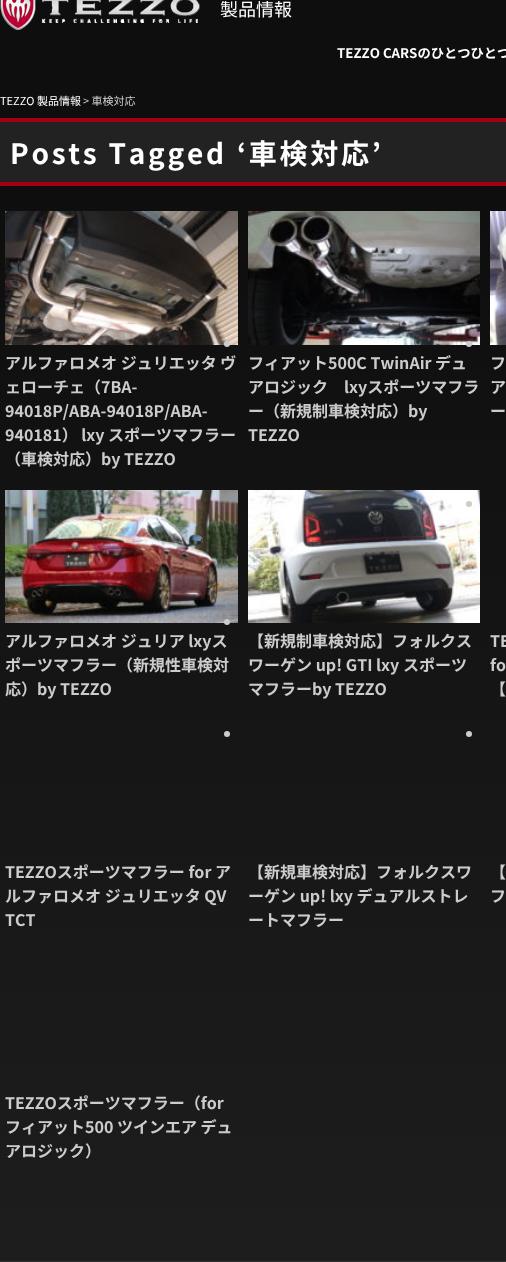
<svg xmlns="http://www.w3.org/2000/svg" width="506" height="1262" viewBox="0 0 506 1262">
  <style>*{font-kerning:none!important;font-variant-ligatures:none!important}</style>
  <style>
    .t1 { font: 18px Noto Sans JP; fill: #fff; }
    .t2 { font: bold 13.25px Noto Sans JP; fill: #fff; }
    .t3 { font: 11px Noto Sans JP; fill: #fff; }
    .t4 { font: 11px Noto Sans JP; fill: #ccc; }
    .t5 { font: bold 28px Noto Sans JP; letter-spacing: 2.75px; fill: #fff; }
    .t6 { font: bold 16px Noto Sans JP; fill: #ccc; }
  </style>
  <defs>
    <linearGradient id="g1" gradientUnits="userSpaceOnUse" x1="253" y1="-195" x2="253" y2="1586"><stop offset="0.22" stop-color="#0e0e0e"/><stop offset="1" stop-color="#222"/></linearGradient>
  </defs>
  <rect width="100%" height="100%" fill="#fff"/>
  <rect x="0" y="0" width="506" height="1261" fill="url(#g1)"/>
  <image x="0" y="0" width="200" height="30" href="images/1.png"/>
  <text x="220" y="16" class="t1">製品情報</text>
  <text x="337" y="58" class="t2">TEZZO CARSのひとつひとつ</text>
  <text x="0" y="105" class="t3">TEZZO 製品情報</text>
  <text x="83" y="105" class="t4">&gt; 車検対応</text>
  <rect x="0" y="122" width="506" height="60" fill="#222"/>
  <rect x="0" y="118" width="506" height="4" fill="#a30013"/>
  <rect x="0" y="182" width="506" height="4" fill="#a30013"/>
  <text x="10" y="164" class="t5">Posts Tagged</text>
  <text x="237" y="164" class="t5">‘車検対応’</text>
  <image x="5" y="211" width="233" height="134" href="images/2.png"/>
  <text x="5" y="369" class="t6">アルファロメオ ジュリエッタ ヴ</text>
  <text x="5" y="393" class="t6">ェローチェ（7BA-</text>
  <text x="5" y="417" class="t6">94018P/ABA-94018P/ABA-</text>
  <text x="5" y="441" class="t6">940181） lxy スポーツマフラー</text>
  <text x="5" y="465" class="t6">（車検対応）by TEZZO</text>
  <circle cx="227" cy="344" r="3" fill="#ccc"/>
  <image x="248" y="211" width="232" height="134" href="images/3.png"/>
  <text x="248" y="369" class="t6">フィアット500C TwinAir デュ</text>
  <text x="248" y="393" class="t6">アロジック　lxyスポーツマフラ</text>
  <text x="248" y="417" class="t6">ー（新規制車検対応）by</text>
  <text x="248" y="441" class="t6">TEZZO</text>
  <circle cx="469" cy="344" r="3" fill="#ccc"/>
  <image x="490" y="211" width="16" height="134" href="images/4.png"/>
  <text x="490" y="369" class="t6">フ</text>
  <text x="490" y="393" class="t6">ア</text>
  <text x="490" y="417" class="t6">ー</text>
  <image x="5" y="490" width="233" height="133" href="images/5.png"/>
  <text x="5" y="647" class="t6">アルファロメオ ジュリア lxyス</text>
  <text x="5" y="671" class="t6">ポーツマフラー（新規性車検対</text>
  <text x="5" y="695" class="t6">応）by TEZZO</text>
  <circle cx="227" cy="622" r="3" fill="#ccc"/>
  <image x="248" y="490" width="232" height="133" href="images/6.png"/>
  <text x="248" y="647" class="t6">【新規制車検対応】フォルクス</text>
  <text x="248" y="671" class="t6">ワーゲン up! GTI lxy スポーツ</text>
  <text x="248" y="695" class="t6">マフラーby TEZZO</text>
  <circle cx="469" cy="504" r="3" fill="#ccc"/>
  <text x="490" y="647" class="t6">TE</text>
  <text x="490" y="671" class="t6">fo</text>
  <text x="490" y="695" class="t6">【</text>
  <text x="5" y="878" class="t6">TEZZOスポーツマフラー for ア</text>
  <text x="5" y="902" class="t6">ルファロメオ ジュリエッタ QV</text>
  <text x="5" y="926" class="t6">TCT</text>
  <circle cx="227" cy="734" r="3" fill="#ccc"/>
  <text x="248" y="878" class="t6">【新規車検対応】フォルクスワ</text>
  <text x="248" y="902" class="t6">ーゲン up! lxy デュアルストレ</text>
  <text x="248" y="926" class="t6">ートマフラー</text>
  <circle cx="469" cy="734" r="3" fill="#ccc"/>
  <text x="490" y="878" class="t6">【</text>
  <text x="490" y="902" class="t6">フ</text>
  <text x="5" y="1109" class="t6">TEZZOスポーツマフラー（for</text>
  <text x="5" y="1133" class="t6">フィアット500 ツインエア デュ</text>
  <text x="5" y="1157" class="t6">アロジック）</text>
  <rect x="0" y="1261" width="506" height="1" fill="#333"/>
</svg>
